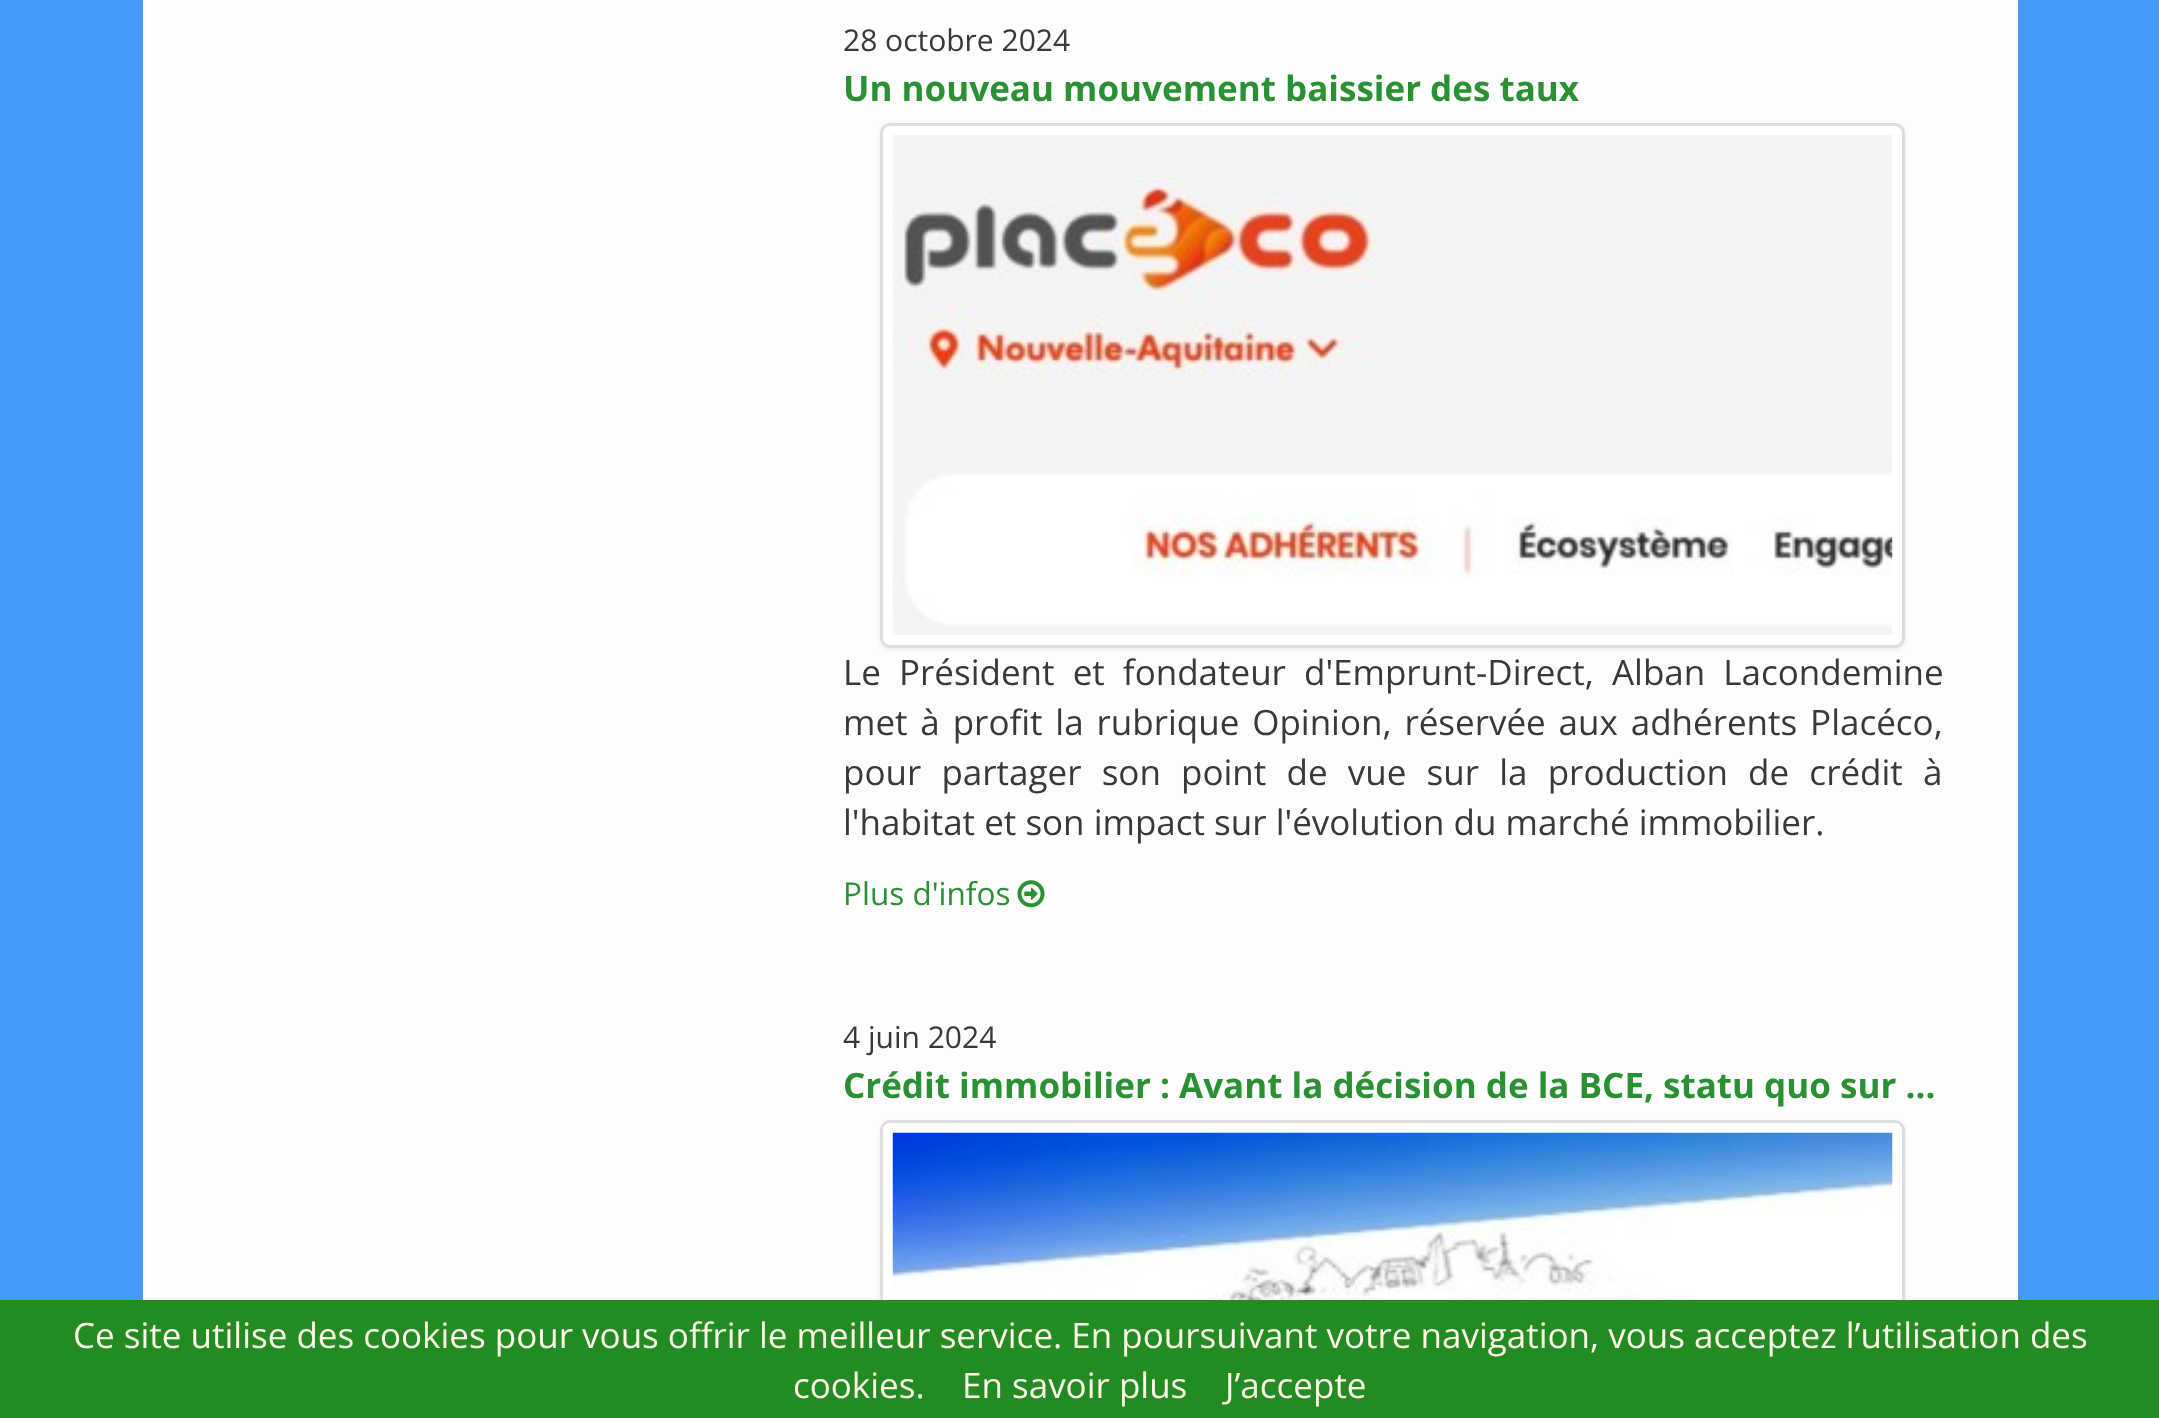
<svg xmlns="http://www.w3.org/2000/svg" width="2159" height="1418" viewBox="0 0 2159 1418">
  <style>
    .t1 { font: 30px Open Sans; fill: #393939; }
    .t2 { font: bold 35px Open Sans; fill: #2a9133; }
    .t3 { font: 35px Open Sans; fill: #393939; }
    .t4 { font: 31.5px Open Sans; fill: #2a9133; }
    .t5 { font: 35px Open Sans; fill: #fdf5e6; }
  </style>
  <rect width="100%" height="100%" fill="#429bf9"/>
  <rect x="143" y="0" width="1875" height="1300" fill="#fdfdfd"/>
  <text x="843" y="51" class="t1">28 octobre 2024</text>
  <text x="843" y="101" class="t2">Un nouveau mouvement baissier des taux</text>
  <rect x="880" y="125" width="1025" height="525" rx="10" fill="#00000012" filter="blur(2.5px)"/>
  <rect x="881.5" y="124.5" width="1022" height="522" rx="8.5" fill="#fff" stroke="#ddd" stroke-width="3"/>
  <image x="892" y="135" width="1001" height="500" href="images/1.png"/>
  <text x="843" y="685" word-spacing="9" class="t3">Le Président et fondateur d'Emprunt-Direct, Alban Lacondemine</text>
  <text x="843" y="735" word-spacing="3.75" class="t3">met à profit la rubrique Opinion, réservée aux adhérents Placéco,</text>
  <text x="843" y="785" word-spacing="11.1" class="t3">pour partager son point de vue sur la production de crédit à</text>
  <text x="843" y="835" class="t3">l'habitat et son impact sur l'évolution du marché immobilier.</text>
  <text x="843" y="905" class="t4">Plus d'infos</text>
  <image x="1017" y="880" width="28" height="28" href="images/2.png"/>
  <text x="843" y="1048" class="t1">4 juin 2024</text>
  <text x="843" y="1098" class="t2">Crédit immobilier : Avant la décision de la BCE, statu quo sur …</text>
  <rect x="880" y="1123" width="1025" height="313" rx="10" fill="#00000012" filter="blur(2.5px)"/>
  <rect x="881.5" y="1121.5" width="1022" height="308" rx="8.5" fill="#fff" stroke="#ddd" stroke-width="3"/>
  <image x="892" y="1132" width="1001" height="168" href="images/3.png"/>
  <rect x="0" y="1300" width="2159" height="118" fill="#228b22"/>
  <text x="73" y="1348" class="t5">Ce site utilise des cookies pour vous offrir le meilleur service. En poursuivant votre navigation, vous acceptez l’utilisation des</text>
  <text x="793" y="1398" class="t5">cookies.</text>
  <text x="962" y="1398" class="t5">En savoir plus</text>
  <text x="1225" y="1398" class="t5">J’accepte</text>
</svg>
